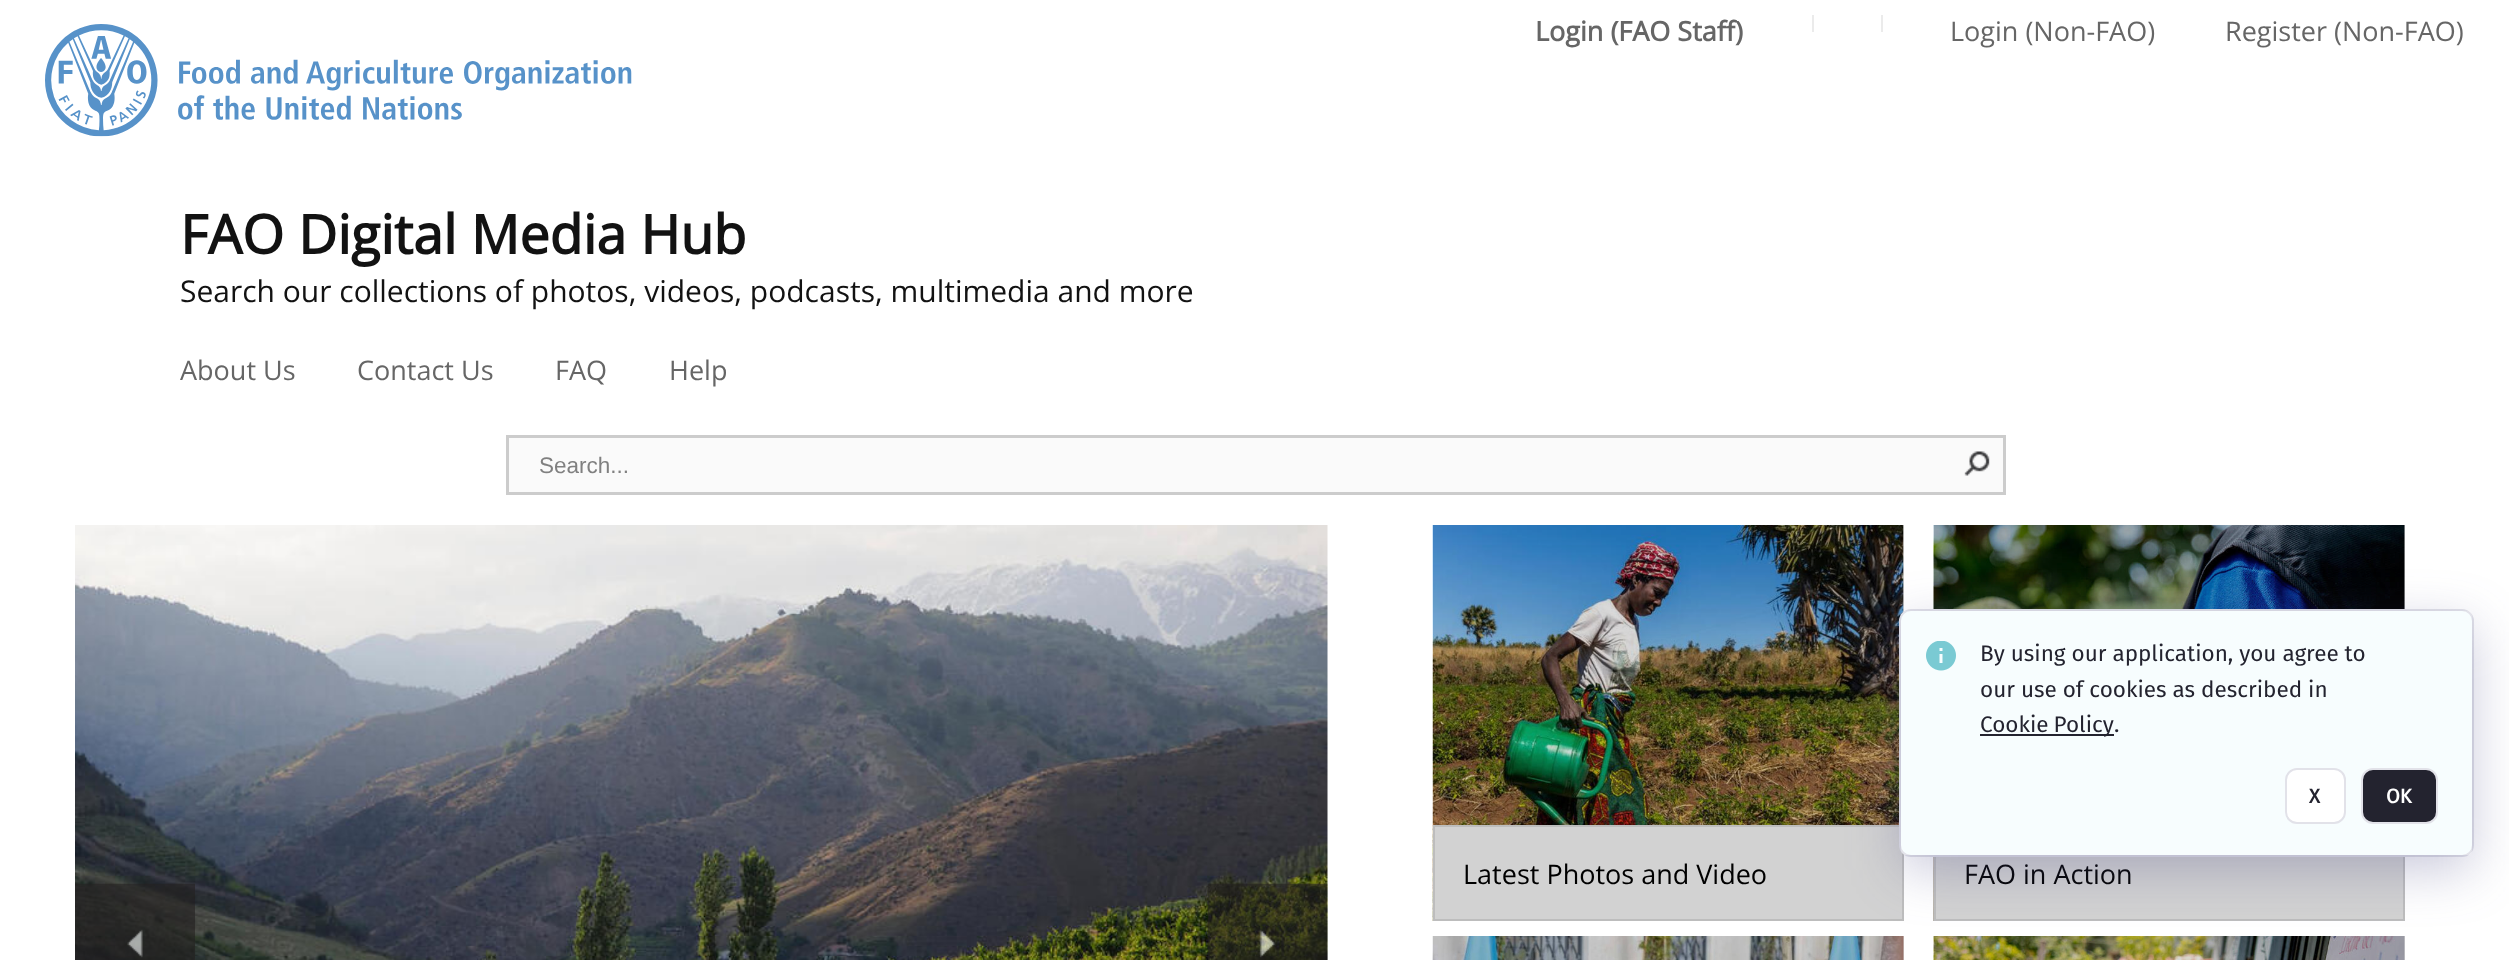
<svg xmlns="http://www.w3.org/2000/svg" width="2509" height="960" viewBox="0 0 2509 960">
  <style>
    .t1 { font: bold 27px Open Sans; fill: #666; }
    .t2 { font: 27px Open Sans; fill: #666; }
    .t3 { font: bold 54px Open Sans; fill: #121212; }
    .t4 { font: 30px Open Sans; fill: #121212; }
    .t5 { font: 22.5px Liberation Sans; fill: #808080; }
    .t6 { font: 27px Open Sans; fill: #000; }
    .t7 { font: 22.5px Fira Sans; fill: #23232f; }
    .t8 { font: bold 20px Fira Sans; fill: #23232f; }
    .t9 { font: bold 20px Fira Sans; fill: #fff; }
  </style>
  <defs>
    <clipPath id="clip1"><path d="M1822 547H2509V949H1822ZM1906 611H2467C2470 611 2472 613 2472 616V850C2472 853 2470 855 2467 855H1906C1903 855 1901 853 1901 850V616C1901 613 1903 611 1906 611Z" clip-rule="evenodd"/></clipPath>
  </defs>
  <rect width="100%" height="100%" fill="#fff"/>
  <rect x="2404" y="936" width="1" height="24" fill="#d9d9d9"/>
  <rect x="1903" y="936" width="1" height="24" fill="#d9d9d9"/>
  <rect x="2404" y="525" width="1" height="84" fill="#d9d9d9"/>
  <rect x="1903" y="525" width="1" height="88" fill="#d9d9d9"/>
  <image x="45" y="24" width="587" height="113" href="images/1.png"/>
  <text x="1535" y="41" class="t1">Login (FAO Staff)</text>
  <rect x="1812" y="15" width="2" height="17" fill="#ebebeb"/>
  <rect x="1881" y="15" width="2" height="17" fill="#ebebeb"/>
  <text x="1950" y="41" class="t2">Login (Non-FAO)</text>
  <text x="2225" y="41" class="t2">Register (Non-FAO)</text>
  <text x="180" y="254" class="t3">FAO Digital Media Hub</text>
  <text x="180" y="302" class="t4">Search our collections of photos, videos, podcasts, multimedia and more</text>
  <text x="180" y="380" class="t2">About Us</text>
  <text x="357" y="380" class="t2">Contact Us</text>
  <text x="555" y="380" class="t2">FAQ</text>
  <text x="669" y="380" class="t2">Help</text>
  <rect x="507.5" y="436.5" width="1497" height="57" fill="#fafafa" stroke="#ccc" stroke-width="3"/>
  <text x="539" y="473" class="t5">Search...</text>
  <image x="1964" y="451" width="26" height="25" href="images/2.png"/>
  <image x="75" y="525" width="1253" height="435" href="images/3.png"/>
  <image x="75" y="883" width="120" height="77" href="images/4.png"/>
  <image x="1207" y="883" width="121" height="77" href="images/5.png"/>
  <image x="1432" y="525" width="472" height="396" href="images/6.png"/>
  <rect x="1434" y="826" width="469" height="94" fill="#d2d2d2" stroke="#bdbdbd" stroke-width="2"/>
  <text x="1463" y="884" class="t6">Latest Photos and Video</text>
  <image x="1933" y="525" width="472" height="396" href="images/7.png"/>
  <rect x="1936" y="857" width="467" height="62" fill="#d2d2d2"/>
  <rect x="1935" y="826" width="469" height="94" fill="none" stroke="#bdbdbd" stroke-width="2"/>
  <text x="1964" y="884" class="t6">FAO in Action</text>
  <image x="1432" y="936" width="472" height="24" href="images/8.png"/>
  <image x="1933" y="936" width="472" height="24" href="images/9.png"/>
  <rect x="1900" y="610" width="573" height="246" rx="11" fill="#f7fdfe" stroke="#e2e2e9" stroke-width="2"/>
  <g clip-path="url(#clip1)">
    <rect x="1901" y="626" width="571" height="244" rx="5" fill="#4d4d874d" filter="blur(26px)"/>
  </g>
  <image x="1926" y="641" width="30" height="30" href="images/10.png"/>
  <text x="1980" y="661" class="t7">By using our application, you agree to</text>
  <text x="1980" y="697" class="t7">our use of cookies as described in</text>
  <rect x="1980" y="734" width="134" height="2" fill="#23232f"/>
  <text x="1980" y="732" word-spacing="-1" class="t7">Cookie Policy</text>
  <text x="2114" y="732" class="t7">.</text>
  <rect x="2286" y="769" width="59" height="54" rx="11" fill="#fff" stroke="#e2e2e9" stroke-width="2"/>
  <text x="2309" y="803" class="t8">X</text>
  <rect x="2362" y="769" width="75" height="54" rx="11" fill="#23232f" stroke="#e2e2e9" stroke-width="2"/>
  <text x="2386" y="803" class="t9">OK</text>
</svg>
